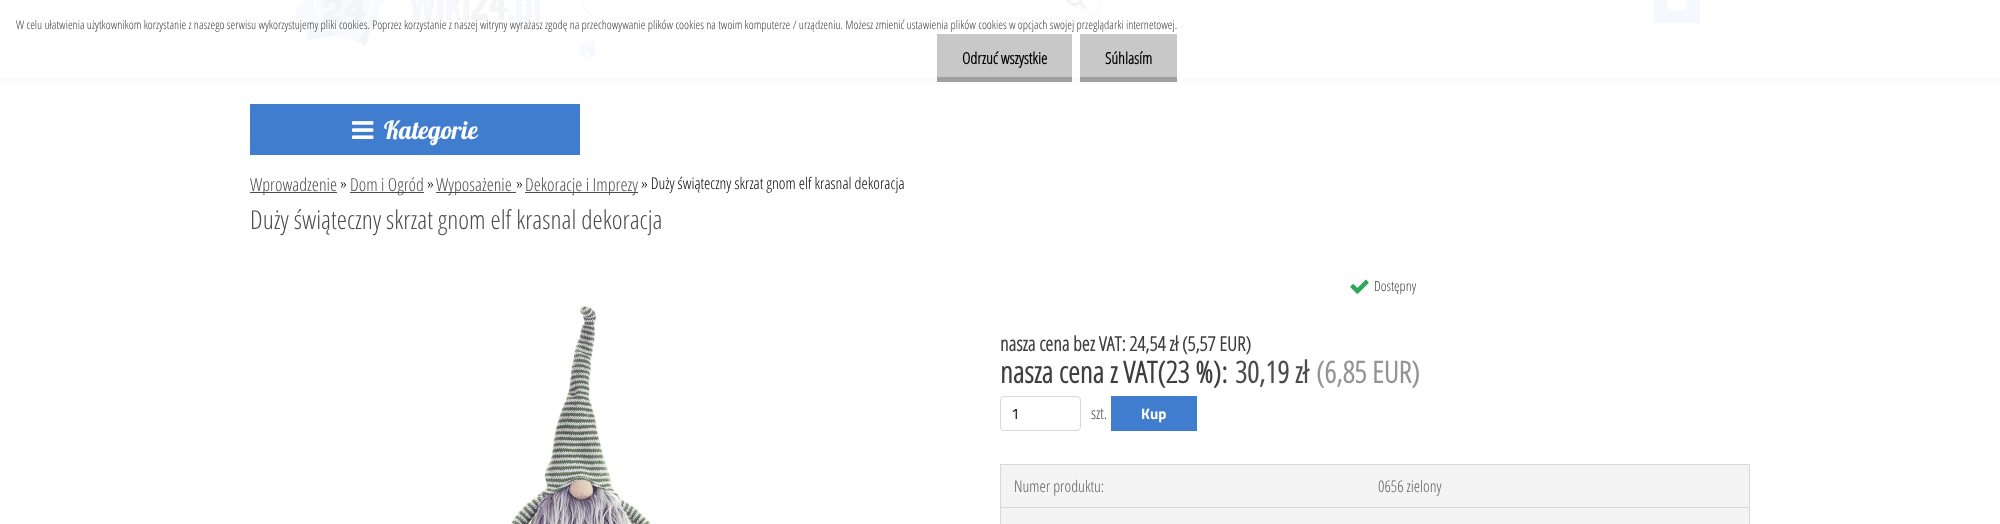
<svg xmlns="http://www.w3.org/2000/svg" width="2000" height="524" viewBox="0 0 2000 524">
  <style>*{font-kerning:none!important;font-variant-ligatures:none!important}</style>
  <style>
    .t1 { font: 300 12px Open Sans Condensed; fill: #3f3f3f; }
    .t2 { font: bold 16px Open Sans Condensed; fill: #000; }
    .t3 { font: 25px Lobster; fill: #fff; }
    .t4 { font: 300 18px Open Sans Condensed; fill: #4c4c4c; }
    .t5 { font: 300 16px Open Sans Condensed; fill: #000; }
    .t6 { font: 300 26px Open Sans Condensed; fill: #4c4c4c; }
    .t7 { font: 300 14px Open Sans Condensed; fill: #3f3f3f; }
    .t8 { font: bold 20px Open Sans Condensed; fill: #3f3f3f; }
    .t9 { font: bold 30px Open Sans Condensed; fill: #3f3f3f; }
    .t10 { font: bold 30px Open Sans Condensed; fill: #4c4c4c; }
    .t11 { font: bold 30px Open Sans Condensed; fill: #949494; }
    .t12 { font: 15px Titillium Web; fill: #000; }
    .t13 { font: 300 16px Open Sans Condensed; fill: #3f3f3f; }
    .t14 { font: bold 15px Titillium Web; fill: #fff; }
    .t15 { font: 300 16px Open Sans Condensed; fill: #5d5d5d; }
  </style>
  <rect width="100%" height="100%" fill="#fff"/>
  <image x="292" y="0" width="248" height="46" href="images/1.png"/>
  <text x="16" y="29" class="t1">W celu ułatwienia użytkownikom korzystanie z naszego serwisu wykorzystujemy pliki cookies. Poprzez korzystanie z naszej witryny wyrażasz zgodę na przechowywanie plików cookies na twoim komputerze / urządzeniu. Możesz zmienić ustawienia plików cookies w opcjach swojej przeglądarki internetowej.</text>
  <rect x="937" y="34" width="135" height="43" fill="#c8c8c8"/>
  <rect x="0" y="77" width="2000" height="7" fill="#fcfcfc"/>
  <rect x="937" y="77" width="135" height="5" fill="#a0a0a0"/>
  <text x="962" y="64" class="t2">Odrzuć wszystkie</text>
  <rect x="1080" y="34" width="97" height="43" fill="#c8c8c8"/>
  <rect x="1080" y="77" width="97" height="5" fill="#a0a0a0"/>
  <text x="1105" y="64" class="t2">Súhlasím</text>
  <path d="M1056 19V18H603C598 18 592 16 589 12L588 13C592 17 597 19 603 19Z" fill="#f2f2f280"/>
  <path d="M588 13C581 6 580-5.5 585-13.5L586-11.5C581-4 583 6 589 12Z" fill="#f2f2f280"/>
  <path d="M1095 12C1101 6 1103-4 1098-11.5L1099-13.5C1104-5.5 1103 6 1096 13Z" fill="#f2f2f280"/>
  <path d="M1056 18V19H1081C1087 19 1092 17 1096 13L1095 12C1092 16 1086 18 1081 18Z" fill="#f2f2f280"/>
  <image x="1066" y="0" width="21" height="10" href="images/2.png"/>
  <image x="577" y="41" width="21" height="16" href="images/3.png"/>
  <rect x="1654" y="0" width="46" height="23" fill="#f5f9fd"/>
  <image x="1666" y="0" width="22" height="10" href="images/4.png"/>
  <rect x="250" y="104" width="330" height="51" fill="#407dcf"/>
  <image x="352" y="121" width="22" height="18" href="images/5.png"/>
  <text x="384" y="139" class="t3">Kategorie</text>
  <rect x="250" y="192" width="87" height="1" fill="#4d4d4d"/>
  <text x="250" y="191" class="t4">Wprowadzenie</text>
  <text x="340" y="189" class="t5">»</text>
  <rect x="350" y="192" width="74" height="1" fill="#4d4d4d"/>
  <text x="350" y="191" class="t4">Dom i Ogród</text>
  <text x="427" y="189" class="t5">»</text>
  <rect x="436" y="192" width="80" height="1" fill="#4d4d4d"/>
  <text x="436" y="191" class="t4">Wyposażenie</text>
  <text x="516" y="189" class="t5">»</text>
  <rect x="525" y="192" width="113" height="1" fill="#4d4d4d"/>
  <text x="525" y="191" class="t4">Dekoracje i Imprezy</text>
  <text x="641" y="189" class="t5">» Duży świąteczny skrzat gnom elf krasnal dekoracja</text>
  <text x="250" y="229" class="t6">Duży świąteczny skrzat gnom elf krasnal dekoracja</text>
  <image x="511" y="306" width="140" height="218" href="images/6.png"/>
  <image x="1350" y="279" width="19" height="15" href="images/7.png"/>
  <text x="1374" y="291" class="t7">Dostępny</text>
  <text x="1000" y="351" class="t8">nasza cena bez VAT: 24,54 zł (5,57 EUR)</text>
  <text x="1000" y="383" class="t9">nasza cena z VAT(23 %):</text>
  <text x="1235" y="383" class="t10">30,19 zł</text>
  <text x="1316" y="383" class="t11">(6,85 EUR)</text>
  <rect x="1000.5" y="396.5" width="80" height="34" rx="3.5" fill="none" stroke="#d9d9d9"/>
  <text x="1011" y="419" class="t12">1</text>
  <text x="1091" y="419" class="t13">szt.</text>
  <rect x="1111" y="396" width="86" height="35" fill="#407dcf"/>
  <text x="1141" y="419" class="t14">Kup</text>
  <rect x="1001" y="465" width="748" height="42" fill="#f4f4f4"/>
  <rect x="1000" y="464" width="750" height="1" fill="#d9d9d9"/>
  <rect x="1000" y="507" width="750" height="1" fill="#d9d9d9"/>
  <rect x="1749" y="507" width="1" height="17" fill="#d9d9d9"/>
  <rect x="1749" y="464" width="1" height="44" fill="#d9d9d9"/>
  <rect x="1000" y="507" width="1" height="17" fill="#d9d9d9"/>
  <rect x="1000" y="464" width="1" height="44" fill="#d9d9d9"/>
  <text x="1014" y="492" class="t15">Numer produktu:</text>
  <text x="1378" y="492" class="t15">0656 zielony</text>
  <rect x="1001" y="508" width="748" height="16" fill="#f4f4f4"/>
</svg>
